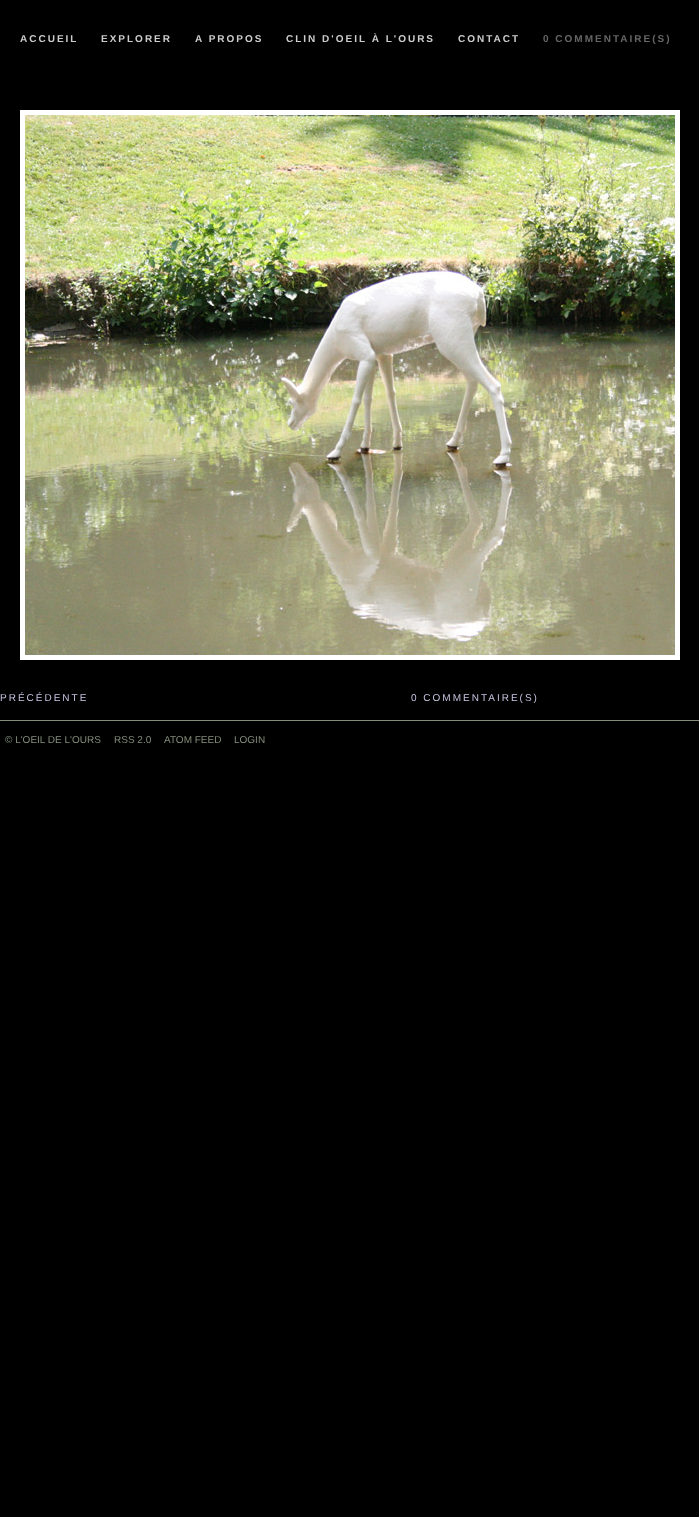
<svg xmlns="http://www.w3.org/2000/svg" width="699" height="1517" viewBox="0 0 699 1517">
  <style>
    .t1 { font: bold 10px Liberation Sans; letter-spacing: 2px; fill: #ccc; }
    .t2 { font: bold 10px Liberation Sans; letter-spacing: 2px; fill: #666; }
    .t3 { font: 10px Liberation Sans; letter-spacing: 2px; fill: #c6c5e0; }
    .t4 { font: 10px Liberation Sans; fill: #838d7a; }
  </style>
  <rect width="100%" height="100%" fill="#000"/>
  <text x="20" y="42" class="t1">ACCUEIL</text>
  <text x="101" y="42" class="t1">EXPLORER</text>
  <text x="195" y="42" class="t1">A PROPOS</text>
  <text x="286" y="42" class="t1">CLIN D'OEIL À L'OURS</text>
  <text x="458" y="42" class="t1">CONTACT</text>
  <text x="543" y="42" class="t2">0 COMMENTAIRE(S)</text>
  <rect x="20" y="110" width="660" height="550" fill="#fff"/>
  <image x="25" y="115" width="650" height="540" href="images/1.png"/>
  <text x="0" y="701" class="t3">PRÉCÉDENTE</text>
  <text x="411" y="701" class="t3">0 COMMENTAIRE(S)</text>
  <rect x="0" y="720" width="699" height="1" fill="#838d7a"/>
  <text x="5" y="743" class="t4">© L'OEIL DE L'OURS</text>
  <text x="114" y="743" class="t4">RSS 2.0</text>
  <text x="164" y="743" class="t4">ATOM FEED</text>
  <text x="234" y="743" class="t4">LOGIN</text>
</svg>
